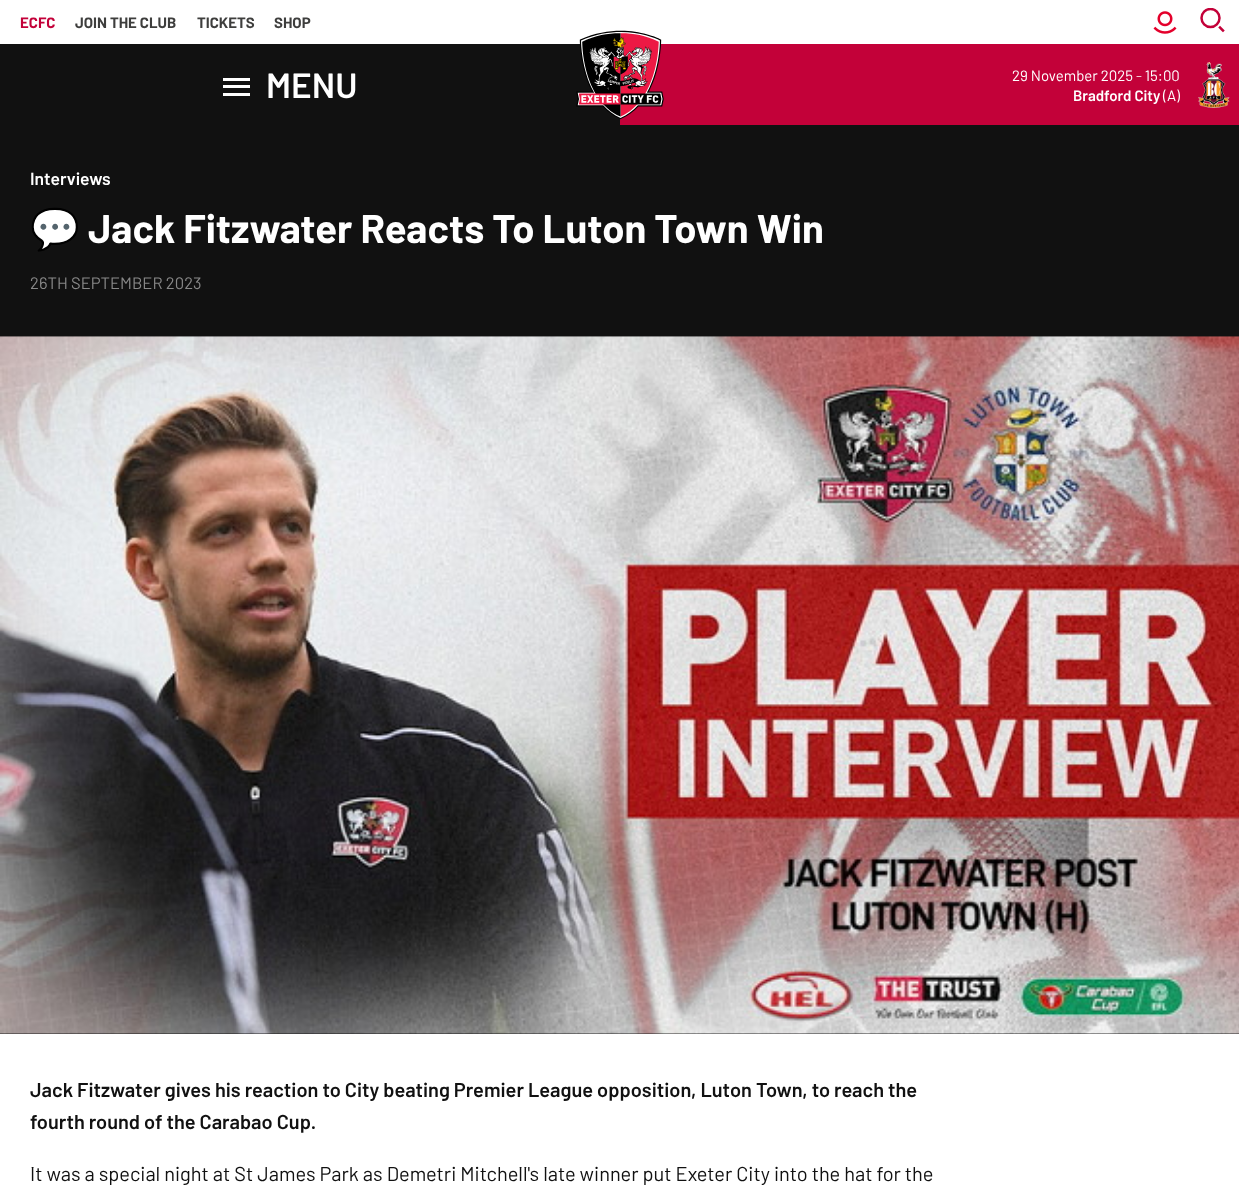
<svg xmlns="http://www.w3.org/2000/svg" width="1239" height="1190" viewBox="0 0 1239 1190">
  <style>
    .t1 { font: bold 15px Barlow; fill: #c30139; }
    .t2 { font: bold 15px Barlow; fill: #3e3e3d; }
    .t3 { font: 600 35px Barlow; fill: #fff; }
    .t4 { font: 15px Barlow; fill: #fff; }
    .t5 { font: 600 15px Barlow; fill: #fff; }
    .t6 { font: 600 17.5px Barlow; fill: #fff; }
    .t7 { font: bold 40px Noto Color Emoji; fill: #fff; }
    .t8 { font: bold 40px Barlow; fill: #fff; }
    .t9 { font: 16.6px Barlow; fill: #888; }
    .t10 { font: 600 20px Barlow; fill: #111; }
    .t11 { font: 20px Barlow; fill: #111; }
  </style>
  <defs>
    <clipPath id="clip1"><rect x="1200" y="8" width="30" height="30"/></clipPath>
  </defs>
  <rect width="100%" height="100%" fill="#fff"/>
  <text x="20" y="28" class="t1">ECFC</text>
  <text x="75" y="28" class="t2">JOIN THE CLUB</text>
  <text x="197" y="28" class="t2">TICKETS</text>
  <text x="274" y="28" class="t2">SHOP</text>
  <image x="1153" y="11" width="24" height="23" href="images/1.png"/>
  <g clip-path="url(#clip1)">
    <circle cx="1210.5" cy="18" r="9" fill="none" stroke="#c30139" stroke-width="2.5"/>
  </g>
  <path d="M1223 30.5L1220 27.5" fill="none" stroke="#c30139" stroke-width="2.5" stroke-linecap="square"/>
  <rect x="0" y="44" width="620" height="81" fill="#111"/>
  <rect x="620" y="44" width="619" height="81" fill="#c30139"/>
  <image x="576" y="30" width="88" height="90" href="images/2.png"/>
  <rect x="223" y="85" width="27" height="3" fill="#fff"/>
  <rect x="223" y="78" width="27" height="3" fill="#fff"/>
  <rect x="223" y="93" width="27" height="3" fill="#fff"/>
  <text x="266" y="98" class="t3">MENU</text>
  <text x="1012" y="81" class="t4">29 November 2025 - 15:00</text>
  <image x="1198" y="62" width="32" height="46" href="images/3.png"/>
  <text x="1073" y="101" class="t5">Bradford City</text>
  <text x="1163" y="101" class="t4">(A)</text>
  <rect x="0" y="125" width="1239" height="909" fill="#111"/>
  <text x="30" y="185" class="t6">Interviews</text>
  <text x="30" y="243" class="t7">💬</text>
  <text x="88" y="243" class="t8">Jack Fitzwater Reacts To Luton Town Win</text>
  <text x="30" y="289" class="t9">26TH SEPTEMBER 2023</text>
  <image x="0" y="336" width="1239" height="698" href="images/4.png"/>
  <text x="30" y="1097" class="t10">Jack Fitzwater gives his reaction to City beating Premier League opposition, Luton Town, to reach the</text>
  <text x="30" y="1129" class="t10">fourth round of the Carabao Cup.</text>
  <text x="30" y="1181" class="t11">It was a special night at St James Park as Demetri Mitchell's late winner put Exeter City into the hat for the</text>
</svg>
